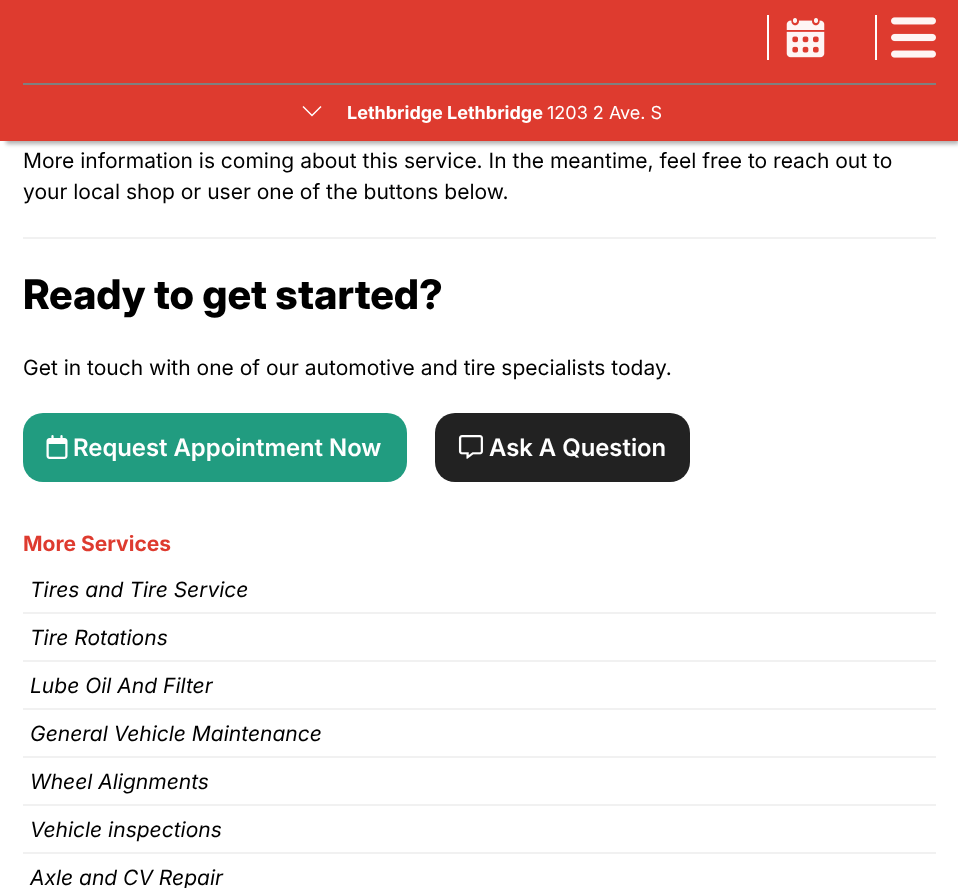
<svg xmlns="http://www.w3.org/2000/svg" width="958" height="888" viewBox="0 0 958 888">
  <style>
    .t1 { font: bold 18px Inter; fill: #fff; }
    .t2 { font: 18px Inter; fill: #fff; }
    .t3 { font: 21px Inter; fill: #000; }
    .t4 { font: 800 40.75px Inter; fill: #000; }
    .t5 { font: 600 24px Inter; fill: #fff; }
    .t6 { font: bold 21px Inter; fill: #de3b2f; }
    .t7 { font: italic 21px Inter; fill: #000; }
  </style>
  <rect width="100%" height="100%" fill="#fff"/>
  <rect x="6" y="9" width="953" height="135" fill="#0000004f" filter="blur(2px)"/>
  <rect x="0" y="0" width="958" height="141" fill="#de3b2f"/>
  <rect x="767" y="15" width="2" height="45" fill="#fff"/>
  <image x="786" y="18" width="39" height="40" href="images/1.png"/>
  <rect x="875" y="15" width="2" height="45" fill="#fff"/>
  <image x="891" y="17" width="45" height="41" href="images/2.png"/>
  <rect x="23" y="83" width="913" height="2" fill="#808080"/>
  <path d="M321 106.5L312 115.5L303 106.5" fill="none" stroke="#fff" stroke-width="1.5"/>
  <text x="347" y="119" class="t1">Lethbridge Lethbridge</text>
  <text x="547" y="119" class="t2">1203 2 Ave. S</text>
  <text x="23" y="168" class="t3">More information is coming about this service. In the meantime, feel free to reach out to</text>
  <text x="23" y="199" class="t3">your local shop or user one of the buttons below.</text>
  <rect x="23" y="237" width="913" height="2" fill="#f1f1f1"/>
  <text x="23" y="309" class="t4">Ready to get started?</text>
  <text x="23" y="375" class="t3">Get in touch with one of our automotive and tire specialists today.</text>
  <rect x="23" y="413" width="384" height="69" rx="20" fill="#219c80"/>
  <image x="46" y="435" width="22" height="24" href="images/3.png"/>
  <text x="73" y="456" class="t5">Request Appointment Now</text>
  <rect x="435" y="413" width="255" height="69" rx="20" fill="#222"/>
  <image x="458" y="435" width="25" height="24" href="images/4.png"/>
  <text x="489" y="456" class="t5">Ask A Question</text>
  <text x="23" y="551" class="t6">More Services</text>
  <rect x="23" y="612" width="913" height="2" fill="#f1f1f1"/>
  <text x="30" y="597" class="t7">Tires and Tire Service</text>
  <rect x="23" y="660" width="913" height="2" fill="#f1f1f1"/>
  <text x="30" y="645" class="t7">Tire Rotations</text>
  <rect x="23" y="708" width="913" height="2" fill="#f1f1f1"/>
  <text x="30" y="693" class="t7">Lube Oil And Filter</text>
  <rect x="23" y="756" width="913" height="2" fill="#f1f1f1"/>
  <text x="30" y="741" class="t7">General Vehicle Maintenance</text>
  <rect x="23" y="804" width="913" height="2" fill="#f1f1f1"/>
  <text x="30" y="789" class="t7">Wheel Alignments</text>
  <rect x="23" y="852" width="913" height="2" fill="#f1f1f1"/>
  <text x="30" y="837" class="t7">Vehicle inspections</text>
  <text x="30" y="885" class="t7">Axle and CV Repair</text>
</svg>
